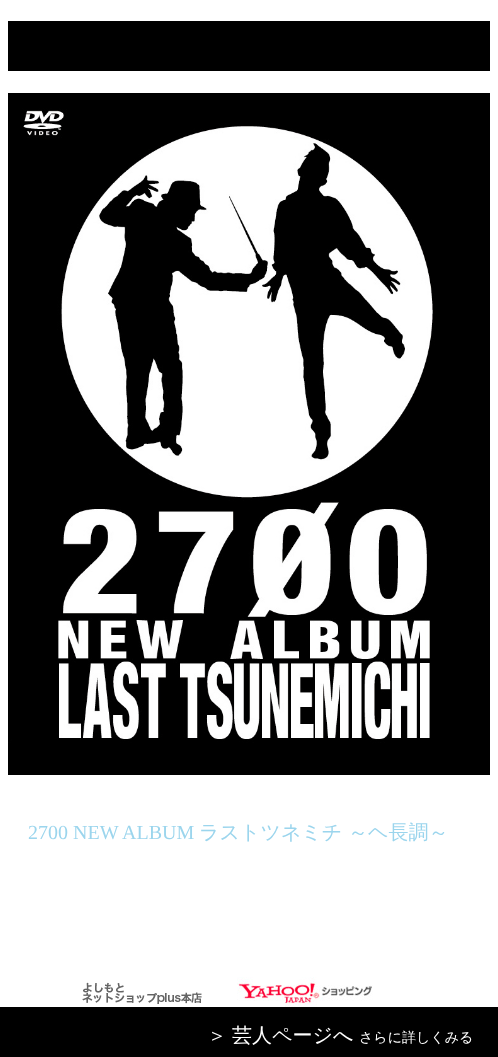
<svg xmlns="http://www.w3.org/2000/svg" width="498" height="1057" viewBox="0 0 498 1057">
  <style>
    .t1 { font: 20px Liberation Serif; fill: #9bd5ed; }
    .t2 { font: 500 20px WenQuanYi Zen Hei; fill: #9bd5ed; }
    .t3 { font: 500 20px WenQuanYi Zen Hei; fill: #fff; }
    .t4 { font: 500 14px WenQuanYi Zen Hei; fill: #fff; }
  </style>
  <rect width="100%" height="100%" fill="#fff"/>
  <rect x="8" y="21" width="482" height="50" fill="#000"/>
  <image x="8" y="93" width="482" height="682" href="images/1.png"/>
  <text x="28" y="839" class="t1">2700 NEW ALBUM</text>
  <text x="199" y="839" class="t2">ラストツネミチ</text>
  <text x="348" y="839" class="t2">～ヘ長調～</text>
  <image x="71" y="982" width="142" height="25" href="images/2.png"/>
  <image x="237" y="977" width="142" height="30" href="images/3.png"/>
  <rect x="0" y="1007" width="498" height="50" fill="#000"/>
  <text x="207" y="1042" word-spacing="-1" class="t3">＞ 芸人ページへ</text>
  <text x="359" y="1042" class="t4">さらに詳しくみる</text>
</svg>
